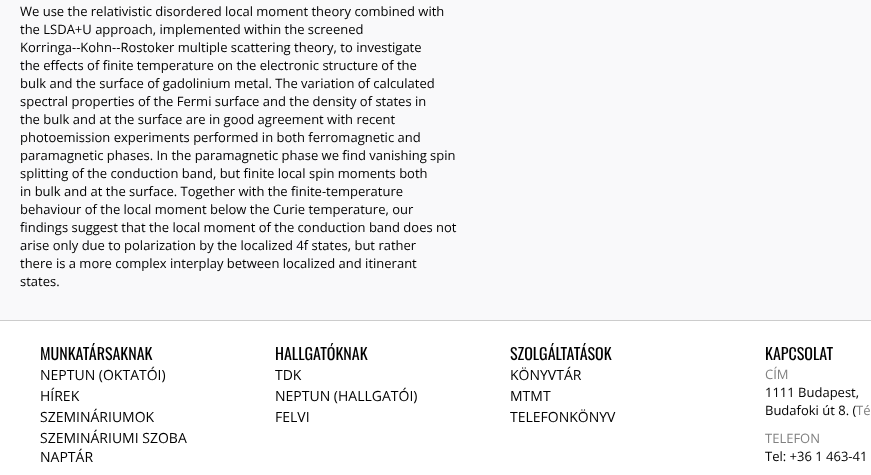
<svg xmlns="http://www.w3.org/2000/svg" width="871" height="475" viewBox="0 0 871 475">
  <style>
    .t1 { font: 13px Open Sans; fill: #000; }
    .t2 { font: 16px Oswald; fill: #000; }
    .t3 { font: 14px Open Sans; fill: #000; }
    .t4 { font: 13px Open Sans; fill: #808080; }
  </style>
  <rect width="100%" height="100%" fill="#f9f9fa"/>
  <text x="20" y="16" class="t1">We use the relativistic disordered local moment theory combined with</text>
  <text x="20" y="34" class="t1">the LSDA+U approach, implemented within the screened</text>
  <text x="20" y="52" class="t1">Korringa--Kohn--Rostoker multiple scattering theory, to investigate</text>
  <text x="20" y="70" class="t1">the effects of finite temperature on the electronic structure of the</text>
  <text x="20" y="88" class="t1">bulk and the surface of gadolinium metal. The variation of calculated</text>
  <text x="20" y="106" class="t1">spectral properties of the Fermi surface and the density of states in</text>
  <text x="20" y="124" class="t1">the bulk and at the surface are in good agreement with recent</text>
  <text x="20" y="142" class="t1">photoemission experiments performed in both ferromagnetic and</text>
  <text x="20" y="160" class="t1">paramagnetic phases. In the paramagnetic phase we find vanishing spin</text>
  <text x="20" y="178" class="t1">splitting of the conduction band, but finite local spin moments both</text>
  <text x="20" y="196" class="t1">in bulk and at the surface. Together with the finite-temperature</text>
  <text x="20" y="214" class="t1">behaviour of the local moment below the Curie temperature, our</text>
  <text x="20" y="232" class="t1">findings suggest that the local moment of the conduction band does not</text>
  <text x="20" y="250" class="t1">arise only due to polarization by the localized 4f states, but rather</text>
  <text x="20" y="268" class="t1">there is a more complex interplay between localized and itinerant</text>
  <text x="20" y="286" class="t1">states.</text>
  <rect x="0" y="321" width="871" height="154" fill="#fff"/>
  <rect x="0" y="320" width="871" height="1" fill="#ccc"/>
  <text x="40" y="360" class="t2">MUNKATÁRSAKNAK</text>
  <text x="40" y="380" class="t3">NEPTUN (OKTATÓI)</text>
  <text x="40" y="401" class="t3">HÍREK</text>
  <text x="40" y="422" class="t3">SZEMINÁRIUMOK</text>
  <text x="40" y="443" class="t3">SZEMINÁRIUMI SZOBA</text>
  <text x="40" y="462" class="t3">NAPTÁR</text>
  <text x="275" y="360" class="t2">HALLGATÓKNAK</text>
  <text x="275" y="380" class="t3">TDK</text>
  <text x="275" y="401" class="t3">NEPTUN (HALLGATÓI)</text>
  <text x="275" y="422" class="t3">FELVI</text>
  <text x="510" y="360" class="t2">SZOLGÁLTATÁSOK</text>
  <text x="510" y="380" class="t3">KÖNYVTÁR</text>
  <text x="510" y="401" class="t3">MTMT</text>
  <text x="510" y="422" class="t3">TELEFONKÖNYV</text>
  <text x="765" y="360" class="t2">KAPCSOLAT</text>
  <text x="765" y="379" class="t4">CÍM</text>
  <text x="765" y="397" class="t1">1111 Budapest,</text>
  <text x="765" y="415" class="t1">Budafoki út 8. (</text>
  <text x="856" y="415" class="t4">Té</text>
  <text x="765" y="443" class="t4">TELEFON</text>
  <text x="765" y="461" class="t1">Tel: +36 1 463-41</text>
</svg>
